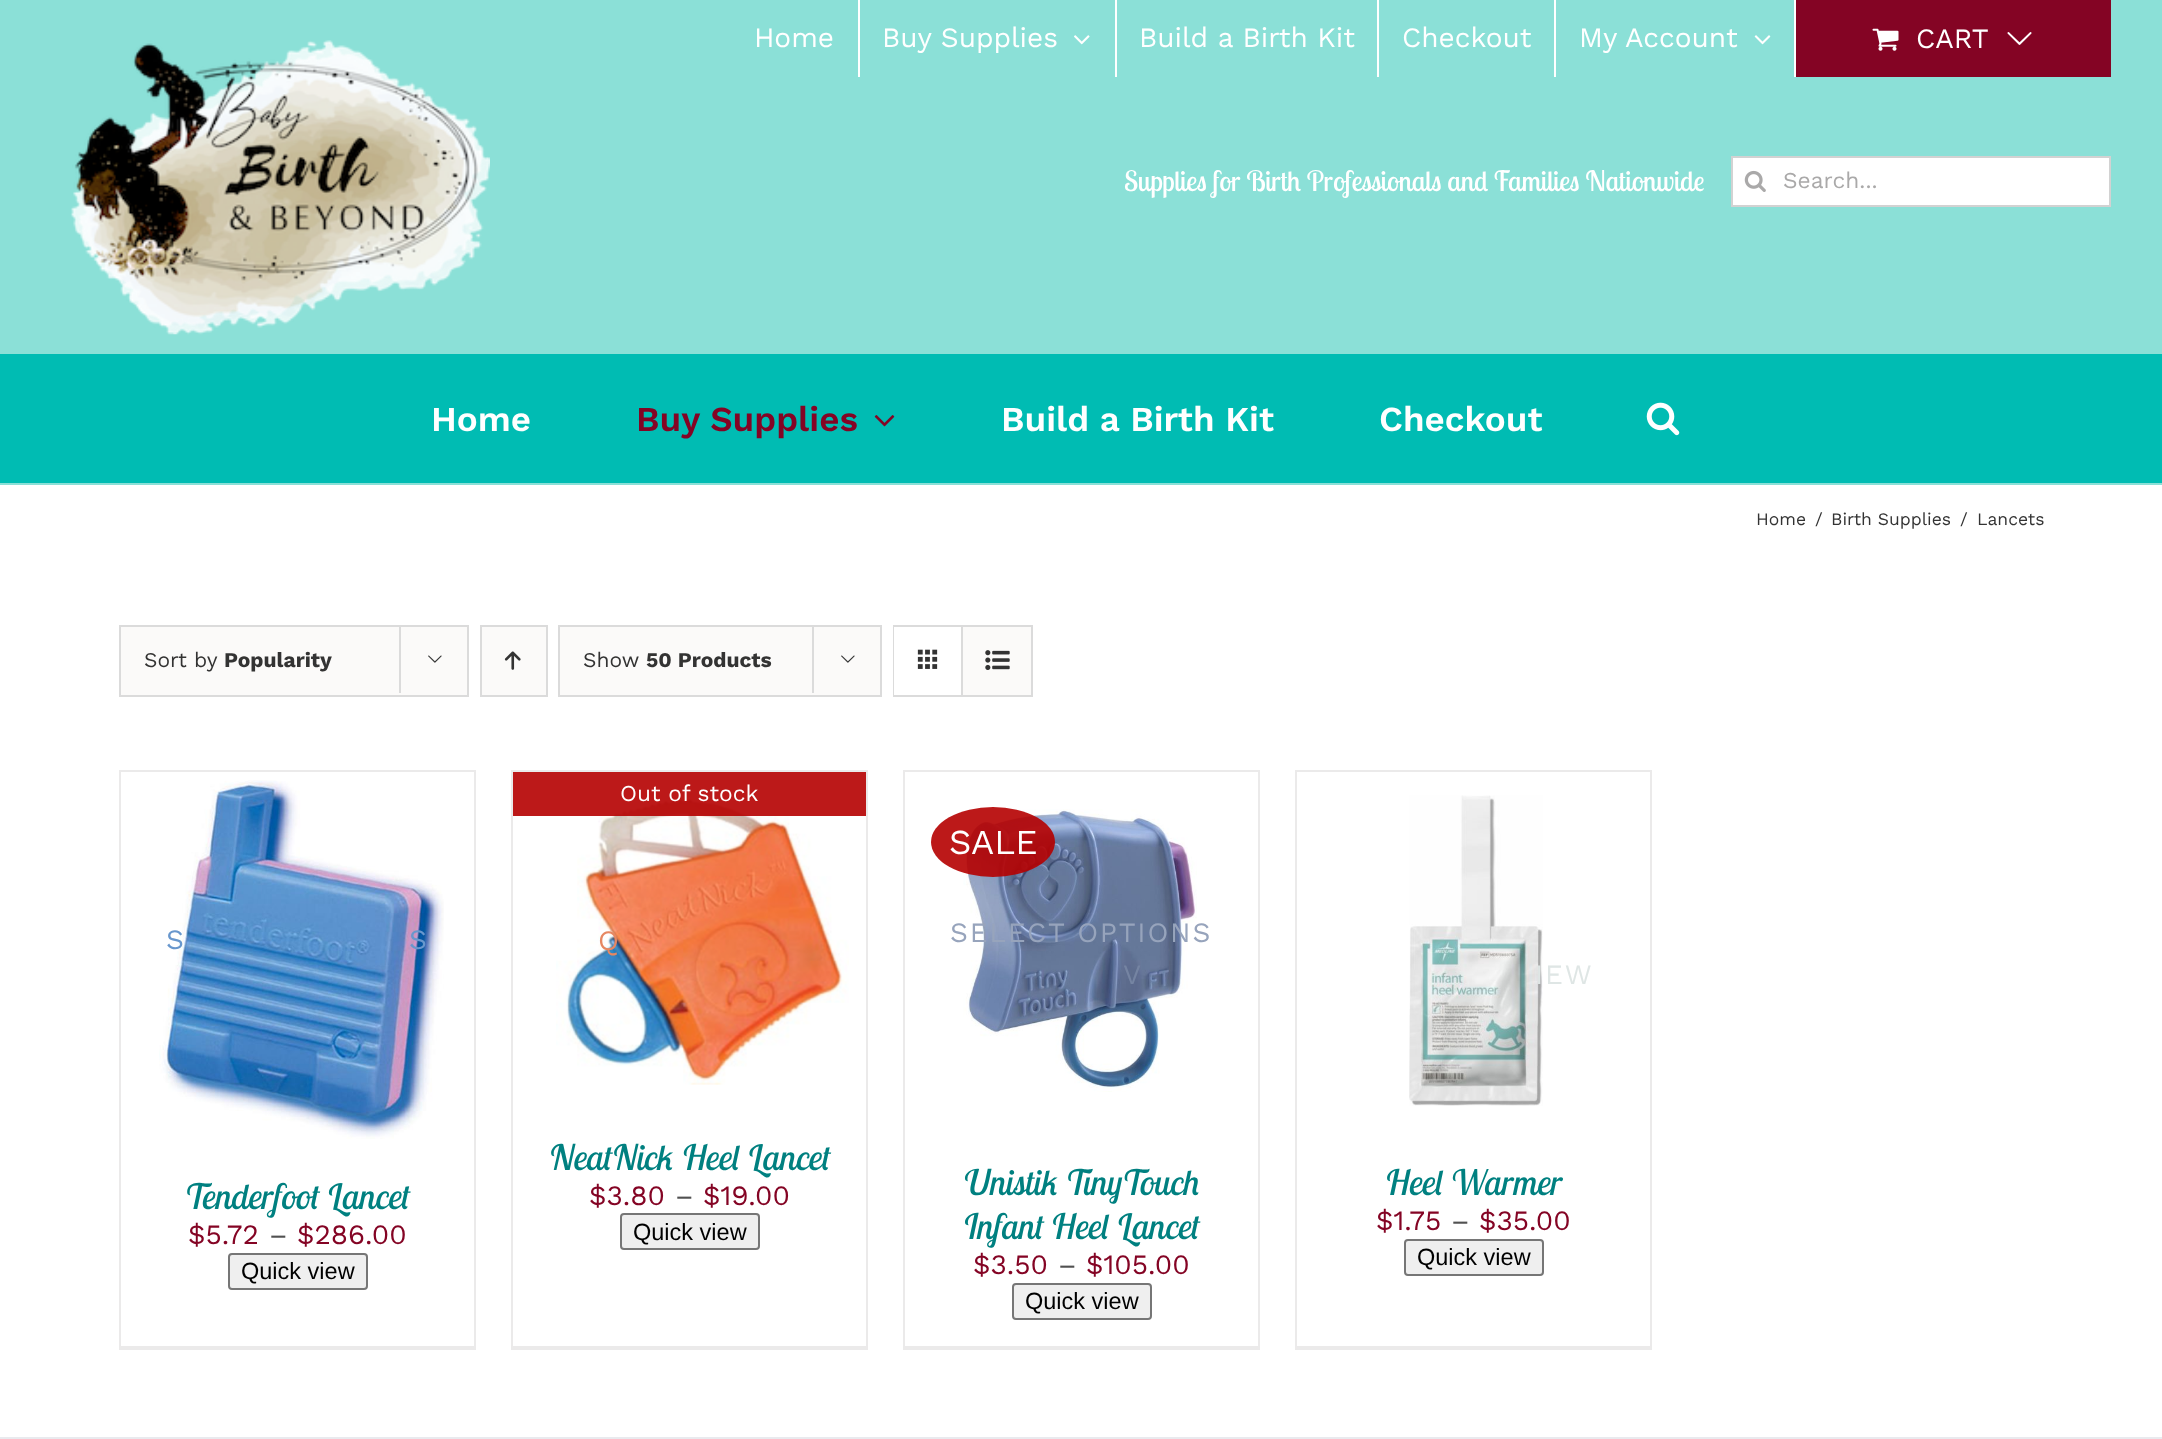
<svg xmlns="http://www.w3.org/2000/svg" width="2162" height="1439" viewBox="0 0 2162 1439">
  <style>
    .t1 { font: 28px Work Sans; fill: #fff; }
    .t2 { font: 28px Lobster Two; fill: #fff; }
    .t3 { font: 22.75px Work Sans; fill: #aaa9a9; }
    .t4 { font: 600 35px Work Sans; fill: #fff; }
    .t5 { font: 600 35px Work Sans; fill: #840424; }
    .t6 { font: 17.5px Work Sans; fill: #333; }
    .t7 { font: 21px Work Sans; fill: #333; }
    .t8 { font: bold 21px Work Sans; fill: #333; }
    .t9 { font: 28px Work Sans; letter-spacing: 1.75px; fill: #6897cd; }
    .t10 { font: italic 35px Lobster Two; fill: #008080; }
    .t11 { font: 28px Work Sans; fill: #840424; }
    .t12 { font: 28px Work Sans; fill: #515151; }
    .t13 { font: 23.5px Liberation Sans; fill: #000; }
    .t14 { font: 22.75px Work Sans; fill: #fff; }
    .t15 { font: 28px Work Sans; letter-spacing: 1.75px; fill: #e68762; }
    .t16 { font: 35px Work Sans; fill: #fff; }
    .t17 { font: 28px Work Sans; letter-spacing: 1.75px; fill: #97a4bc; }
    .t18 { font: 28px Work Sans; letter-spacing: 1.75px; fill: #7584a2; }
    .t19 { font: 28px Work Sans; letter-spacing: 1.75px; fill: #dfe6e5; }
  </style>
  <rect width="100%" height="100%" fill="#fff"/>
  <rect x="0" y="0" width="2162" height="354" fill="#8be0d7"/>
  <text x="754" y="47" class="t1">Home</text>
  <rect x="858" y="0" width="2" height="77" fill="#fff"/>
  <text x="882" y="47" class="t1">Buy Supplies</text>
  <image x="1074" y="35" width="16" height="10" href="images/1.png"/>
  <rect x="1115" y="0" width="2" height="77" fill="#fff"/>
  <text x="1139" y="47" class="t1">Build a Birth Kit</text>
  <rect x="1377" y="0" width="2" height="77" fill="#fff"/>
  <text x="1402" y="47" class="t1">Checkout</text>
  <rect x="1554" y="0" width="2" height="77" fill="#fff"/>
  <text x="1579" y="47" class="t1">My Account</text>
  <image x="1754" y="35" width="17" height="10" href="images/2.png"/>
  <rect x="1794" y="0" width="2" height="77" fill="#fff"/>
  <rect x="1796" y="0" width="315" height="77" fill="#840424"/>
  <image x="1872" y="28" width="27" height="23" href="images/3.png"/>
  <text x="1916" y="48" class="t1">CART</text>
  <image x="2007" y="32" width="25" height="13" href="images/4.png"/>
  <image x="70" y="40" width="420" height="295" href="images/5.png"/>
  <text x="1124" y="191" class="t2">Supplies for Birth Professionals and Families Nationwide</text>
  <rect x="1732" y="157" width="378" height="49" fill="#fff" stroke="#d2d2d2" stroke-width="2"/>
  <image x="1744" y="170" width="22" height="22" href="images/6.png"/>
  <text x="1783" y="188" class="t3">Search...</text>
  <rect x="0" y="354" width="2162" height="129" fill="#00bcb3"/>
  <rect x="0" y="483" width="2162" height="2" fill="#8be0d7"/>
  <text x="431" y="431" class="t4">Home</text>
  <text x="636" y="431" class="t5">Buy Supplies</text>
  <image x="874" y="415" width="21" height="12" href="images/7.png"/>
  <text x="1001" y="431" class="t4">Build a Birth Kit</text>
  <text x="1379" y="431" class="t4">Checkout</text>
  <image x="1646" y="402" width="34" height="34" href="images/8.png"/>
  <text x="1756" y="525" class="t6">Home</text>
  <text x="1815" y="525" class="t6">/</text>
  <text x="1831" y="525" class="t6">Birth Supplies</text>
  <text x="1960" y="525" class="t6">/</text>
  <text x="1977" y="525" class="t6">Lancets</text>
  <rect x="120" y="626" width="348" height="70" fill="#fbfaf9" stroke="#dbdbdb" stroke-width="2"/>
  <text x="144" y="667" class="t7">Sort by</text>
  <text x="224" y="667" class="t8">Popularity</text>
  <rect x="399" y="625" width="2" height="68" fill="#dbdbdb"/>
  <image x="428" y="655" width="14" height="8" href="images/9.png"/>
  <rect x="481" y="626" width="66" height="70" fill="#fbfaf9" stroke="#dbdbdb" stroke-width="2"/>
  <image x="504" y="651" width="17" height="19" href="images/10.png"/>
  <rect x="559" y="626" width="322" height="70" fill="#fbfaf9" stroke="#dbdbdb" stroke-width="2"/>
  <text x="583" y="667" class="t7">Show</text>
  <text x="646" y="667" class="t8">50 Products</text>
  <rect x="812" y="625" width="2" height="68" fill="#dbdbdb"/>
  <image x="841" y="655" width="14" height="8" href="images/9.png"/>
  <rect x="894" y="626" width="138" height="70" fill="none" stroke="#dbdbdb" stroke-width="2"/>
  <rect x="894" y="627" width="1" height="68" fill="#fff"/>
  <rect x="961" y="627" width="2" height="68" fill="#dbdbdb"/>
  <image x="917" y="649" width="21" height="20" href="images/11.png"/>
  <rect x="963" y="627" width="68" height="68" fill="#fbfaf9"/>
  <image x="985" y="650" width="25" height="20" href="images/12.png"/>
  <rect x="119" y="770" width="357" height="2" fill="#ebeaea"/>
  <rect x="474" y="770" width="2" height="579" fill="#ebeaea"/>
  <rect x="119" y="1346" width="357" height="4" fill="#ebeaea"/>
  <rect x="119" y="770" width="2" height="579" fill="#ebeaea"/>
  <image x="159" y="780" width="285" height="359" href="images/13.png"/>
  <text x="166" y="949" class="t9">S</text>
  <text x="409" y="949" class="t9">S</text>
  <text x="185" y="1209" class="t10">Tenderfoot Lancet</text>
  <text x="188" y="1244" class="t11">$5.72</text>
  <text x="269" y="1244" class="t12">–</text>
  <text x="297" y="1244" class="t11">$286.00</text>
  <rect x="229" y="1254" width="138" height="35" rx="3" fill="#efefef" stroke="#767676" stroke-width="2"/>
  <text x="241" y="1279" class="t13">Quick view</text>
  <rect x="511" y="770" width="357" height="2" fill="#ebeaea"/>
  <rect x="866" y="770" width="2" height="579" fill="#ebeaea"/>
  <rect x="511" y="1346" width="357" height="4" fill="#ebeaea"/>
  <rect x="511" y="770" width="2" height="579" fill="#ebeaea"/>
  <image x="556" y="796" width="293" height="289" href="images/14.png"/>
  <rect x="513" y="772" width="353" height="44" fill="#b50000e6"/>
  <text x="620" y="801" class="t14">Out of stock</text>
  <text x="598" y="950" class="t15">Q</text>
  <text x="549" y="1170" class="t10">NeatNick Heel Lancet</text>
  <text x="589" y="1205" class="t11">$3.80</text>
  <text x="675" y="1205" class="t12">–</text>
  <text x="703" y="1205" class="t11">$19.00</text>
  <rect x="621" y="1214" width="138" height="35" rx="3" fill="#efefef" stroke="#767676" stroke-width="2"/>
  <text x="633" y="1240" class="t13">Quick view</text>
  <rect x="903" y="770" width="357" height="2" fill="#ebeaea"/>
  <rect x="1258" y="770" width="2" height="579" fill="#ebeaea"/>
  <rect x="903" y="1346" width="357" height="4" fill="#ebeaea"/>
  <rect x="903" y="770" width="2" height="579" fill="#ebeaea"/>
  <image x="963" y="809" width="234" height="283" href="images/15.png"/>
  <ellipse cx="993" cy="842" rx="62" ry="35" fill="#b50000e6"/>
  <text x="949" y="854" class="t16">SALE</text>
  <text x="950" y="942" class="t17">SELECT OPTIONS</text>
  <text x="1123" y="984" class="t18">V</text>
  <text x="963" y="1195" class="t10">Unistik TinyTouch</text>
  <text x="963" y="1239" class="t10">Infant Heel Lancet</text>
  <text x="973" y="1274" class="t11">$3.50</text>
  <text x="1058" y="1274" class="t12">–</text>
  <text x="1086" y="1274" class="t11">$105.00</text>
  <rect x="1013" y="1284" width="138" height="35" rx="3" fill="#efefef" stroke="#767676" stroke-width="2"/>
  <text x="1025" y="1309" class="t13">Quick view</text>
  <rect x="1295" y="770" width="357" height="2" fill="#ebeaea"/>
  <rect x="1650" y="770" width="2" height="579" fill="#ebeaea"/>
  <rect x="1295" y="1346" width="357" height="4" fill="#ebeaea"/>
  <rect x="1295" y="770" width="2" height="579" fill="#ebeaea"/>
  <image x="1409" y="795" width="134" height="311" href="images/16.png"/>
  <text x="1535" y="984" class="t19">IEW</text>
  <text x="1385" y="1195" class="t10">Heel Warmer</text>
  <text x="1376" y="1230" class="t11">$1.75</text>
  <text x="1451" y="1230" class="t12">–</text>
  <text x="1479" y="1230" class="t11">$35.00</text>
  <rect x="1405" y="1240" width="138" height="35" rx="3" fill="#efefef" stroke="#767676" stroke-width="2"/>
  <text x="1417" y="1265" class="t13">Quick view</text>
  <rect x="0" y="1437" width="2162" height="2" fill="#e9eaee"/>
</svg>
